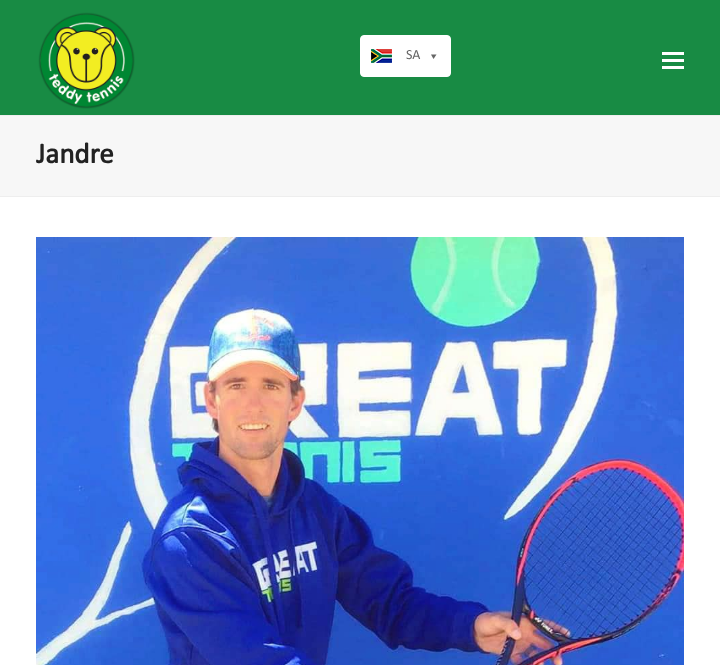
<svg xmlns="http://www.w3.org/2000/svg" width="720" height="665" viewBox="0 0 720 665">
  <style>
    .t1 { font: 14px Calibri; fill: #666; }
    .t2 { font: bold 29px Calibri; fill: #222; }
  </style>
  <rect width="100%" height="100%" fill="#fff"/>
  <rect x="0" y="0" width="720" height="115" fill="#188b44"/>
  <image x="38" y="12" width="97" height="97" href="images/1.png"/>
  <rect x="662" y="59" width="22" height="3" fill="#fff"/>
  <rect x="662" y="52" width="22" height="3" fill="#fff"/>
  <rect x="662" y="66" width="22" height="3" fill="#fff"/>
  <rect x="360.5" y="35.5" width="90" height="41" rx="3.5" fill="#fff" stroke="#fff"/>
  <image x="371" y="49" width="21" height="14" href="images/2.png"/>
  <text x="406" y="59" class="t1">SA</text>
  <path d="M436.5 54.5L433.5 59L431 54.5Z" fill="#666"/>
  <rect x="0" y="116" width="720" height="80" fill="#f7f7f7"/>
  <rect x="0" y="115" width="720" height="1" fill="#eee"/>
  <rect x="0" y="196" width="720" height="1" fill="#eee"/>
  <text x="36" y="163" class="t2">Jandre</text>
  <image x="36" y="237" width="648" height="428" href="images/3.png"/>
</svg>
